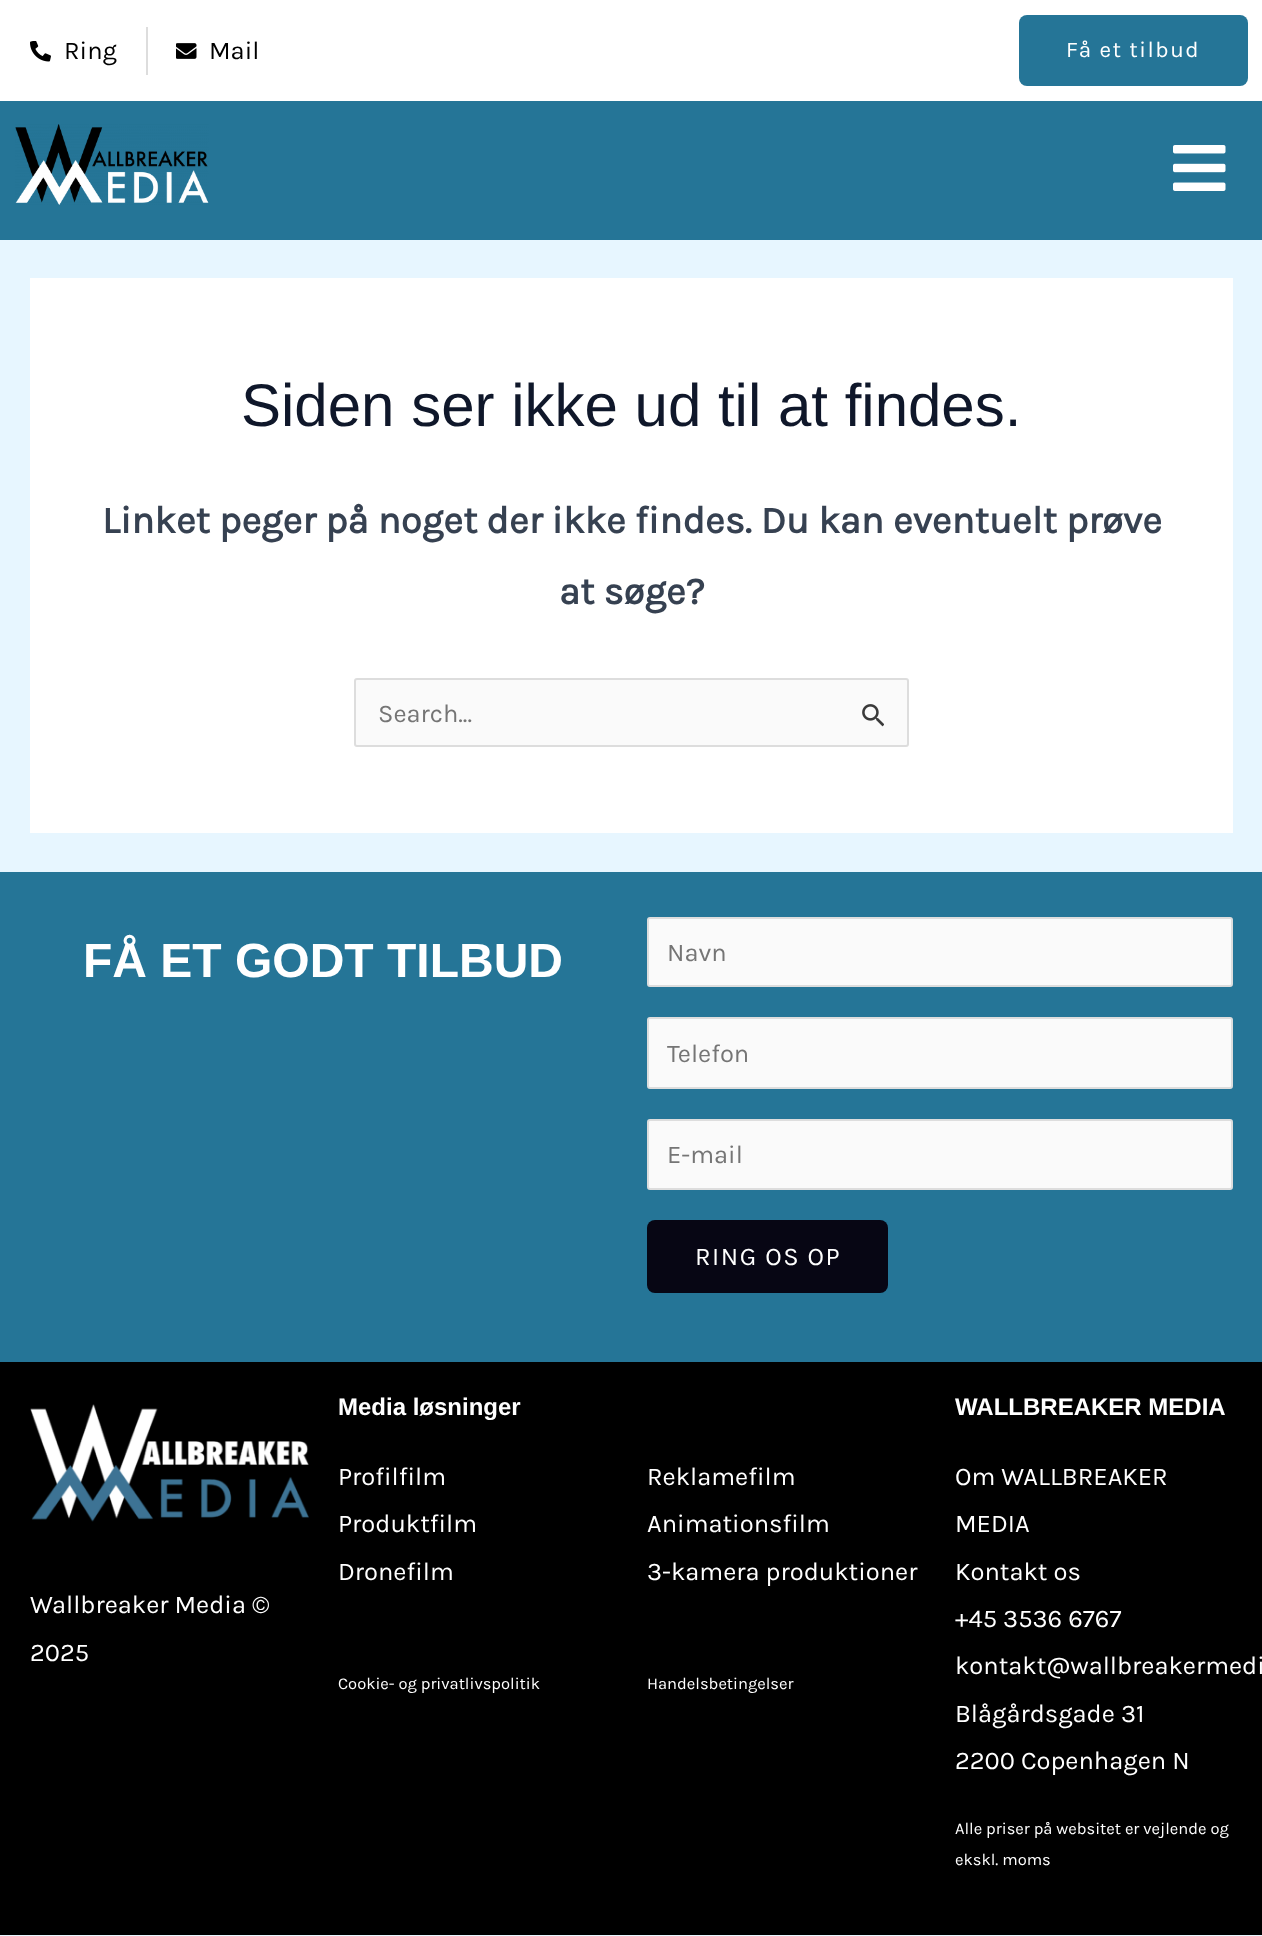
<svg xmlns="http://www.w3.org/2000/svg" width="1262" height="1936" viewBox="0 0 1262 1936">
  <style>
    .t1 { font: 25.5px Karla; fill: #000; }
    .t2 { font: 22.5px Karla; letter-spacing: 1.5px; fill: #fff; }
    .t3 { font: 60px Liberation Sans; fill: #0f172a; }
    .t4 { font: bold 38.25px Karla; fill: #364151; }
    .t5 { font: 25.5px Karla; fill: #757575; }
    .t6 { font: bold 48px Liberation Sans; fill: #fff; }
    .t7 { font: 25.5px Karla; letter-spacing: 1.5px; fill: #fff; }
    .t8 { font: 25.5px Karla; fill: #fff; }
    .t9 { font: bold 24px Liberation Sans; fill: #fff; }
    .t10 { font: 16.5px Karla; fill: #fff; }
  </style>
  <rect width="100%" height="100%" fill="#e7f6ff"/>
  <rect x="0" y="0" width="1262" height="101" fill="#fff"/>
  <image x="30" y="41" width="21" height="21" href="images/1.png"/>
  <text x="64" y="59" class="t1">Ring</text>
  <rect x="146" y="27" width="2" height="48" fill="#ddd"/>
  <image x="176" y="43" width="21" height="16" href="images/2.png"/>
  <text x="209" y="59" class="t1">Mail</text>
  <rect x="1019" y="15" width="229" height="71" rx="8" fill="#257597"/>
  <text x="1066" y="57" class="t2">Få et tilbud</text>
  <rect x="0" y="101" width="1262" height="139" fill="#257597"/>
  <image x="15" y="124" width="194" height="81" href="images/3.png"/>
  <image x="1173" y="145" width="53" height="46" href="images/4.png"/>
  <rect x="30" y="278" width="1203" height="555" fill="#fff"/>
  <text x="241" y="426" class="t3">Siden ser ikke ud til at findes.</text>
  <text x="102" y="533" class="t4">Linket peger på noget der ikke findes. Du kan eventuelt prøve</text>
  <text x="559" y="604" class="t4">at søge?</text>
  <rect x="355" y="679" width="553" height="67" rx="2" fill="#fafafa" stroke="#ddd" stroke-width="2"/>
  <text x="378" y="722" class="t5">Search...</text>
  <image x="862" y="704" width="22" height="23" href="images/5.png"/>
  <rect x="0" y="872" width="1262" height="490" fill="#257597"/>
  <text x="83" y="977" class="t6">FÅ ET GODT TILBUD</text>
  <rect x="648" y="918" width="584" height="68" rx="2" fill="#fafafa" stroke="#ddd" stroke-width="2"/>
  <text x="667" y="961" class="t5">Navn</text>
  <rect x="648" y="1018" width="584" height="70" rx="2" fill="#fafafa" stroke="#ddd" stroke-width="2"/>
  <text x="667" y="1062" class="t5">Telefon</text>
  <rect x="648" y="1120" width="584" height="69" rx="2" fill="#fafafa" stroke="#ddd" stroke-width="2"/>
  <text x="667" y="1163" class="t5">E-mail</text>
  <rect x="647" y="1220" width="241" height="73" rx="8" fill="#070614"/>
  <text x="695" y="1265" class="t7">RING OS OP</text>
  <rect x="0" y="1362" width="1262" height="573" fill="#000"/>
  <image x="30" y="1404" width="279" height="118" href="images/6.png"/>
  <text x="30" y="1613" class="t8">Wallbreaker Media ©</text>
  <text x="30" y="1661" class="t8">2025</text>
  <text x="338" y="1415" class="t9">Media løsninger</text>
  <text x="338" y="1485" class="t8">Profilfilm</text>
  <text x="338" y="1532" class="t8">Produktfilm</text>
  <text x="338" y="1580" class="t8">Dronefilm</text>
  <text x="338" y="1689" class="t10">Cookie- og privatlivspolitik</text>
  <text x="647" y="1485" class="t8">Reklamefilm</text>
  <text x="647" y="1532" class="t8">Animationsfilm</text>
  <text x="647" y="1580" class="t8">3-kamera produktioner</text>
  <text x="647" y="1689" class="t10">Handelsbetingelser</text>
  <text x="955" y="1415" class="t9">WALLBREAKER MEDIA</text>
  <text x="955" y="1485" class="t8">Om WALLBREAKER</text>
  <text x="955" y="1532" class="t8">MEDIA</text>
  <text x="955" y="1580" class="t8">Kontakt os</text>
  <text x="955" y="1627" class="t8">+45 3536 6767</text>
  <text x="955" y="1674" class="t8">kontakt@wallbreakermedi</text>
  <text x="955" y="1722" class="t8">Blågårdsgade 31</text>
  <text x="955" y="1769" class="t8">2200 Copenhagen N</text>
  <text x="955" y="1834" class="t10">Alle priser på websitet er vejlende og</text>
  <text x="955" y="1865" class="t10">ekskl. moms</text>
</svg>
